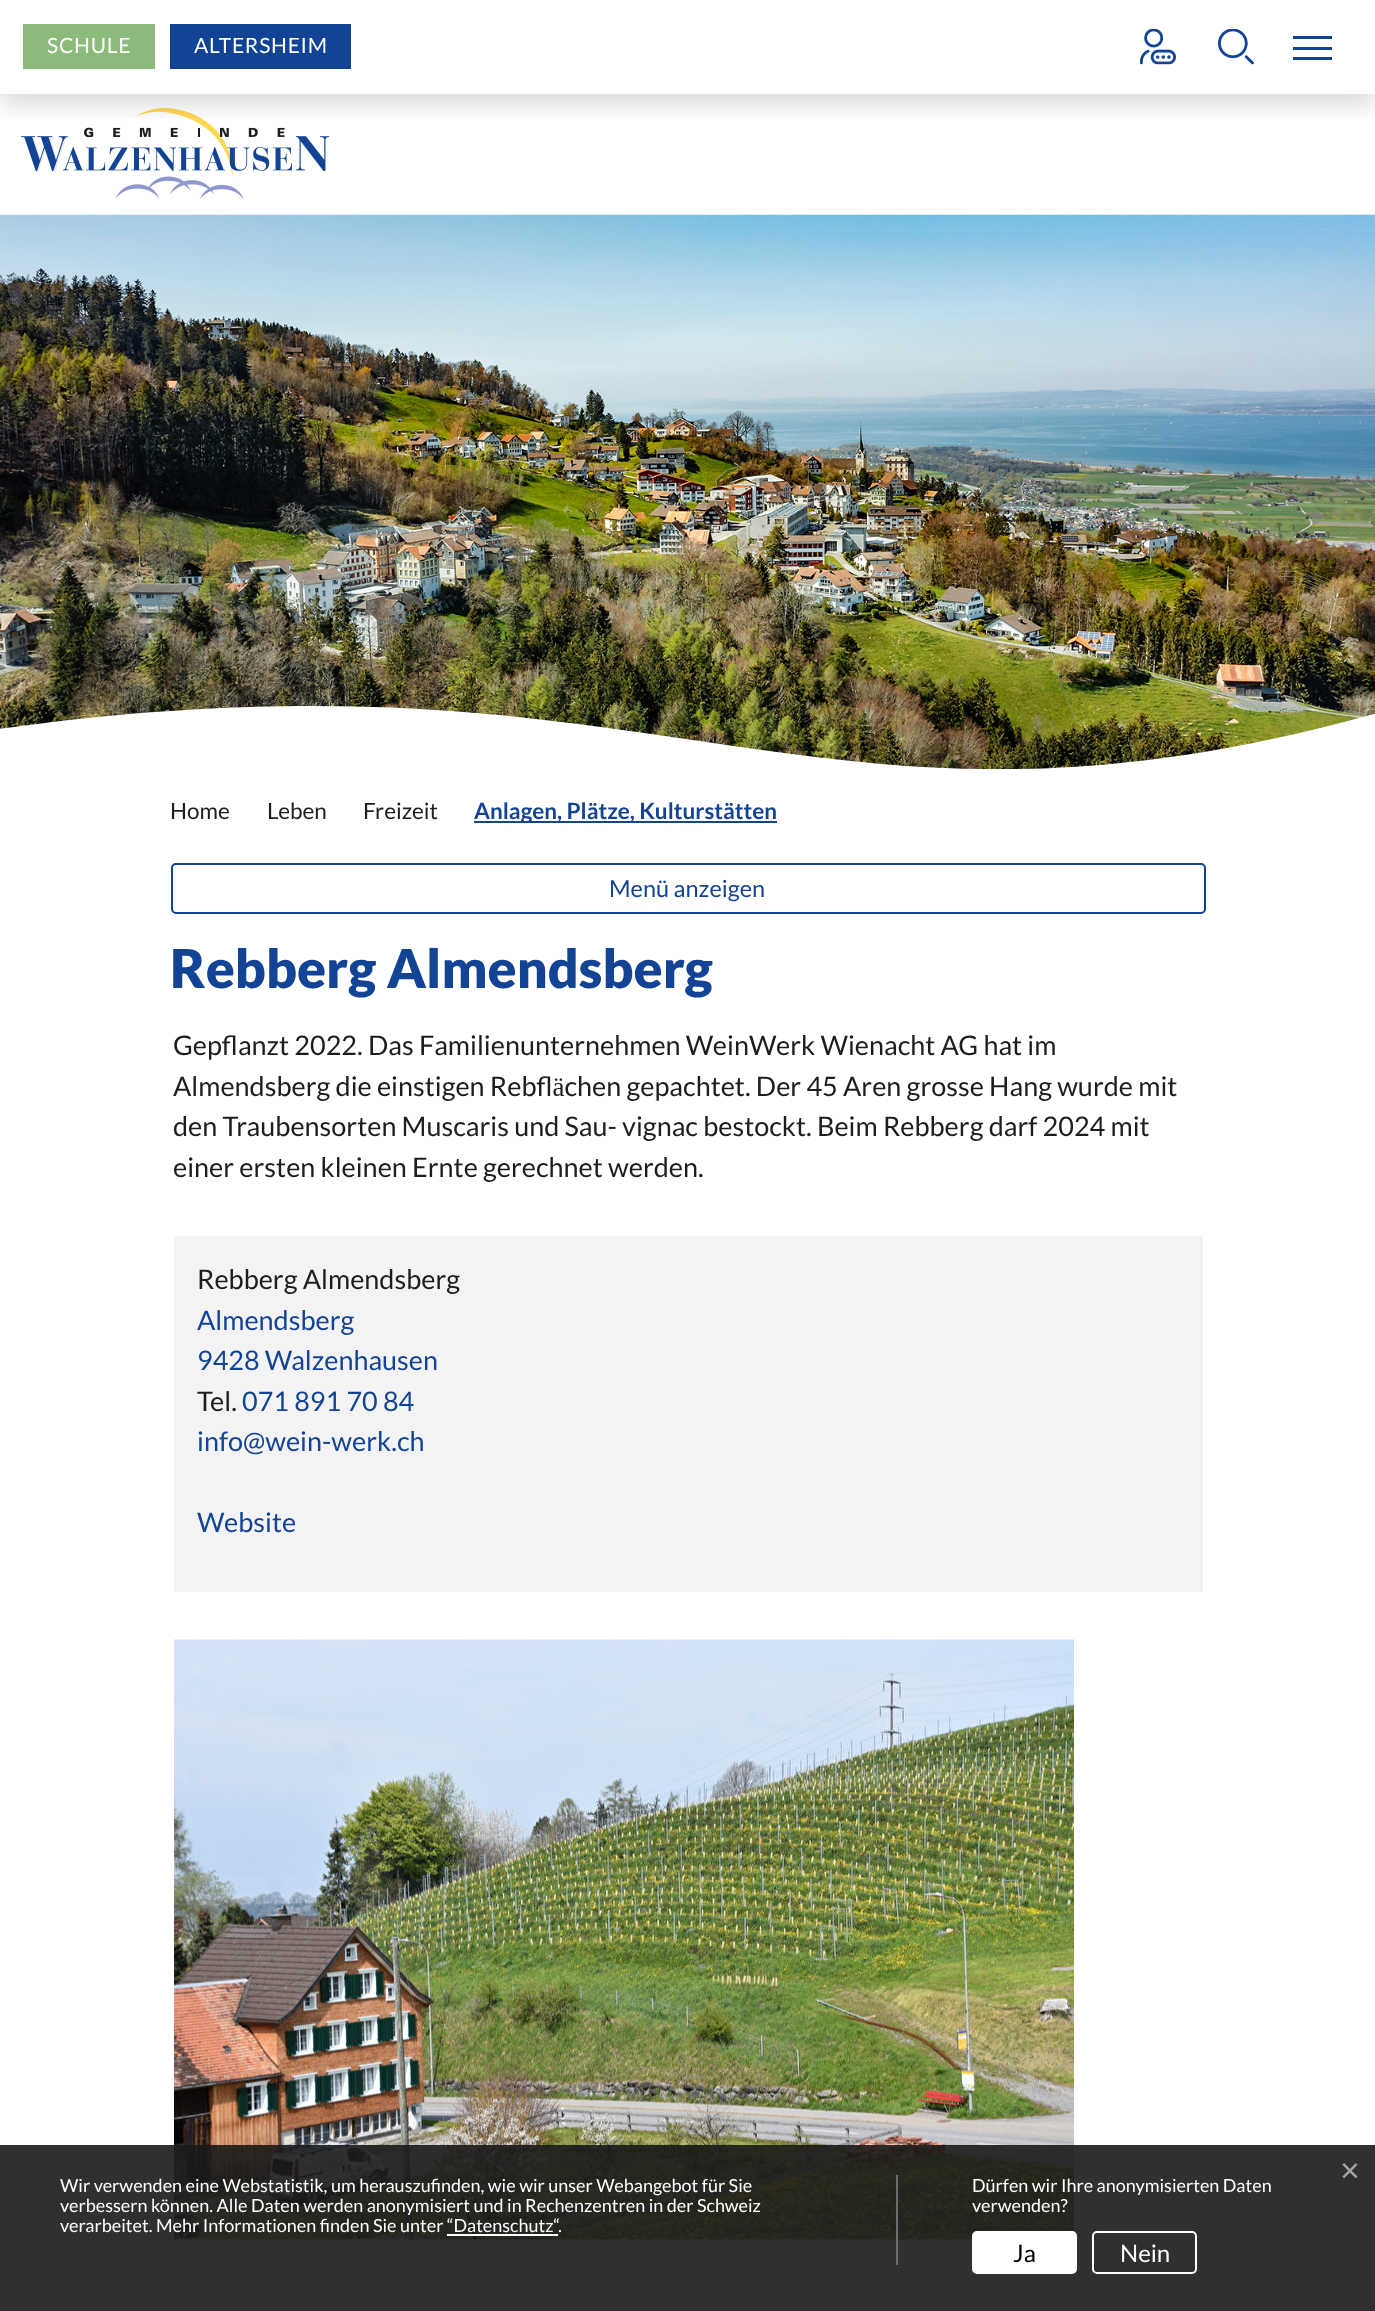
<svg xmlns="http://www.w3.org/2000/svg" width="1375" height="2311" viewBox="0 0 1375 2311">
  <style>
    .t1 { font: 21px Lato; letter-spacing: 0.75px; fill: #fff; }
    .t2 { font: 22.5px Lato; fill: #1d1d1b; }
    .t3 { font: bold 22.5px Lato; fill: #124395; }
    .t4 { font: 23.5px Lato; fill: #124395; }
    .t5 { font: 900 53.6px Lato; fill: #124395; }
    .t6 { font: 27px Lato; fill: #1d1d1b; }
    .t7 { font: 27px Lato; fill: #124395; }
    .t8 { font: 34px Liberation Sans; fill: #a2a2a2; }
    .t9 { font: 18px Lato; fill: #fff; }
    .t10 { font: 24px Lato; fill: #000; }
    .t11 { font: 24px Lato; fill: #fff; }
  </style>
  <defs>
    <clipPath id="clip1"><rect x="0" y="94" width="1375" height="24"/></clipPath>
  </defs>
  <rect width="100%" height="100%" fill="#fff"/>
  <image x="21" y="108" width="309" height="91" href="images/3.png"/>
  <g clip-path="url(#clip1)">
    <rect x="0" y="12" width="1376" height="93" fill="#00000026" filter="blur(12px)"/>
  </g>
  <rect x="0" y="93" width="1375" height="1" fill="#fff"/>
  <rect x="23" y="24" width="132" height="45" fill="#8bba7b"/>
  <text x="47" y="53" class="t1">SCHULE</text>
  <rect x="170" y="24" width="181" height="45" fill="#124395"/>
  <text x="194" y="53" class="t1">ALTERSHEIM</text>
  <image x="1140" y="29" width="36" height="36" href="images/1.png"/>
  <image x="1218" y="29" width="36" height="36" href="images/2.png"/>
  <rect x="1293" y="36" width="39" height="3" fill="#124395"/>
  <rect x="1293" y="47" width="39" height="3" fill="#124395"/>
  <rect x="1293" y="57" width="39" height="3" fill="#124395"/>
  <image x="0" y="214" width="1375" height="556" href="images/4.png"/>
  <path d="M-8 730V770H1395V708C808 877 680 632-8 730Z" fill="#fff"/>
  <text x="170" y="819" class="t2">Home</text>
  <text x="267" y="819" class="t2">Leben</text>
  <text x="363" y="819" class="t2">Freizeit</text>
  <rect x="474" y="821" width="303" height="2" fill="#124395"/>
  <text x="474" y="819" class="t3">Anlagen, Plätze, Kulturstätten</text>
  <rect x="172" y="864" width="1033" height="49" rx="4" fill="none" stroke="#124395" stroke-width="2"/>
  <text x="609" y="897" class="t4">Menü anzeigen</text>
  <text x="170" y="988" class="t5">Rebberg Almendsberg</text>
  <text x="173" y="1055" class="t6">Gepflanzt 2022. Das Familienunternehmen WeinWerk Wienacht AG hat im</text>
  <text x="173" y="1096" class="t6">Almendsberg die einstigen Rebflächen gepachtet. Der 45 Aren grosse Hang wurde mit</text>
  <text x="173" y="1136" class="t6">den Traubensorten Muscaris und Sau- vignac bestockt. Beim Rebberg darf 2024 mit</text>
  <text x="173" y="1177" class="t6">einer ersten kleinen Ernte gerechnet werden.</text>
  <rect x="174" y="1236" width="1029" height="356" fill="#f3f3f3"/>
  <text x="197" y="1289" class="t6">Rebberg Almendsberg</text>
  <text x="197" y="1330" class="t7">Almendsberg</text>
  <text x="197" y="1370" class="t7">9428 Walzenhausen</text>
  <text x="197" y="1411" class="t6">Tel.</text>
  <text x="242" y="1411" class="t7">071 891 70 84</text>
  <text x="197" y="1451" class="t7">info@wein-werk.ch</text>
  <text x="197" y="1532" class="t7">Website</text>
  <image x="174" y="1639" width="900" height="601" href="images/5.png"/>
  <rect x="0" y="2145" width="1375" height="166" fill="#191919e6"/>
  <text x="1340" y="2182" class="t8">×</text>
  <rect x="896" y="2175" width="2" height="90" fill="#6d6d6d"/>
  <text x="60" y="2192" class="t9">Wir verwenden eine Webstatistik, um herauszufinden, wie wir unser Webangebot für Sie</text>
  <text x="60" y="2212" class="t9">verbessern können. Alle Daten werden anonymisiert und in Rechenzentren in der Schweiz</text>
  <text x="60" y="2232" class="t9">verarbeitet. Mehr Informationen finden Sie unter “Datenschutz“</text>
  <text x="558" y="2232" class="t9">.</text>
  <rect x="447" y="2234" width="111" height="2" fill="#fff"/>
  <text x="972" y="2192" class="t9">Dürfen wir Ihre anonymisierten Daten</text>
  <text x="972" y="2212" class="t9">verwenden?</text>
  <rect x="973" y="2232" width="103" height="41" rx="4" fill="#fff" stroke="#fff" stroke-width="2"/>
  <text x="1013" y="2262" class="t10">Ja</text>
  <rect x="1093" y="2232" width="103" height="41" rx="4" fill="none" stroke="#fff" stroke-width="2"/>
  <text x="1120" y="2262" class="t11">Nein</text>
</svg>
